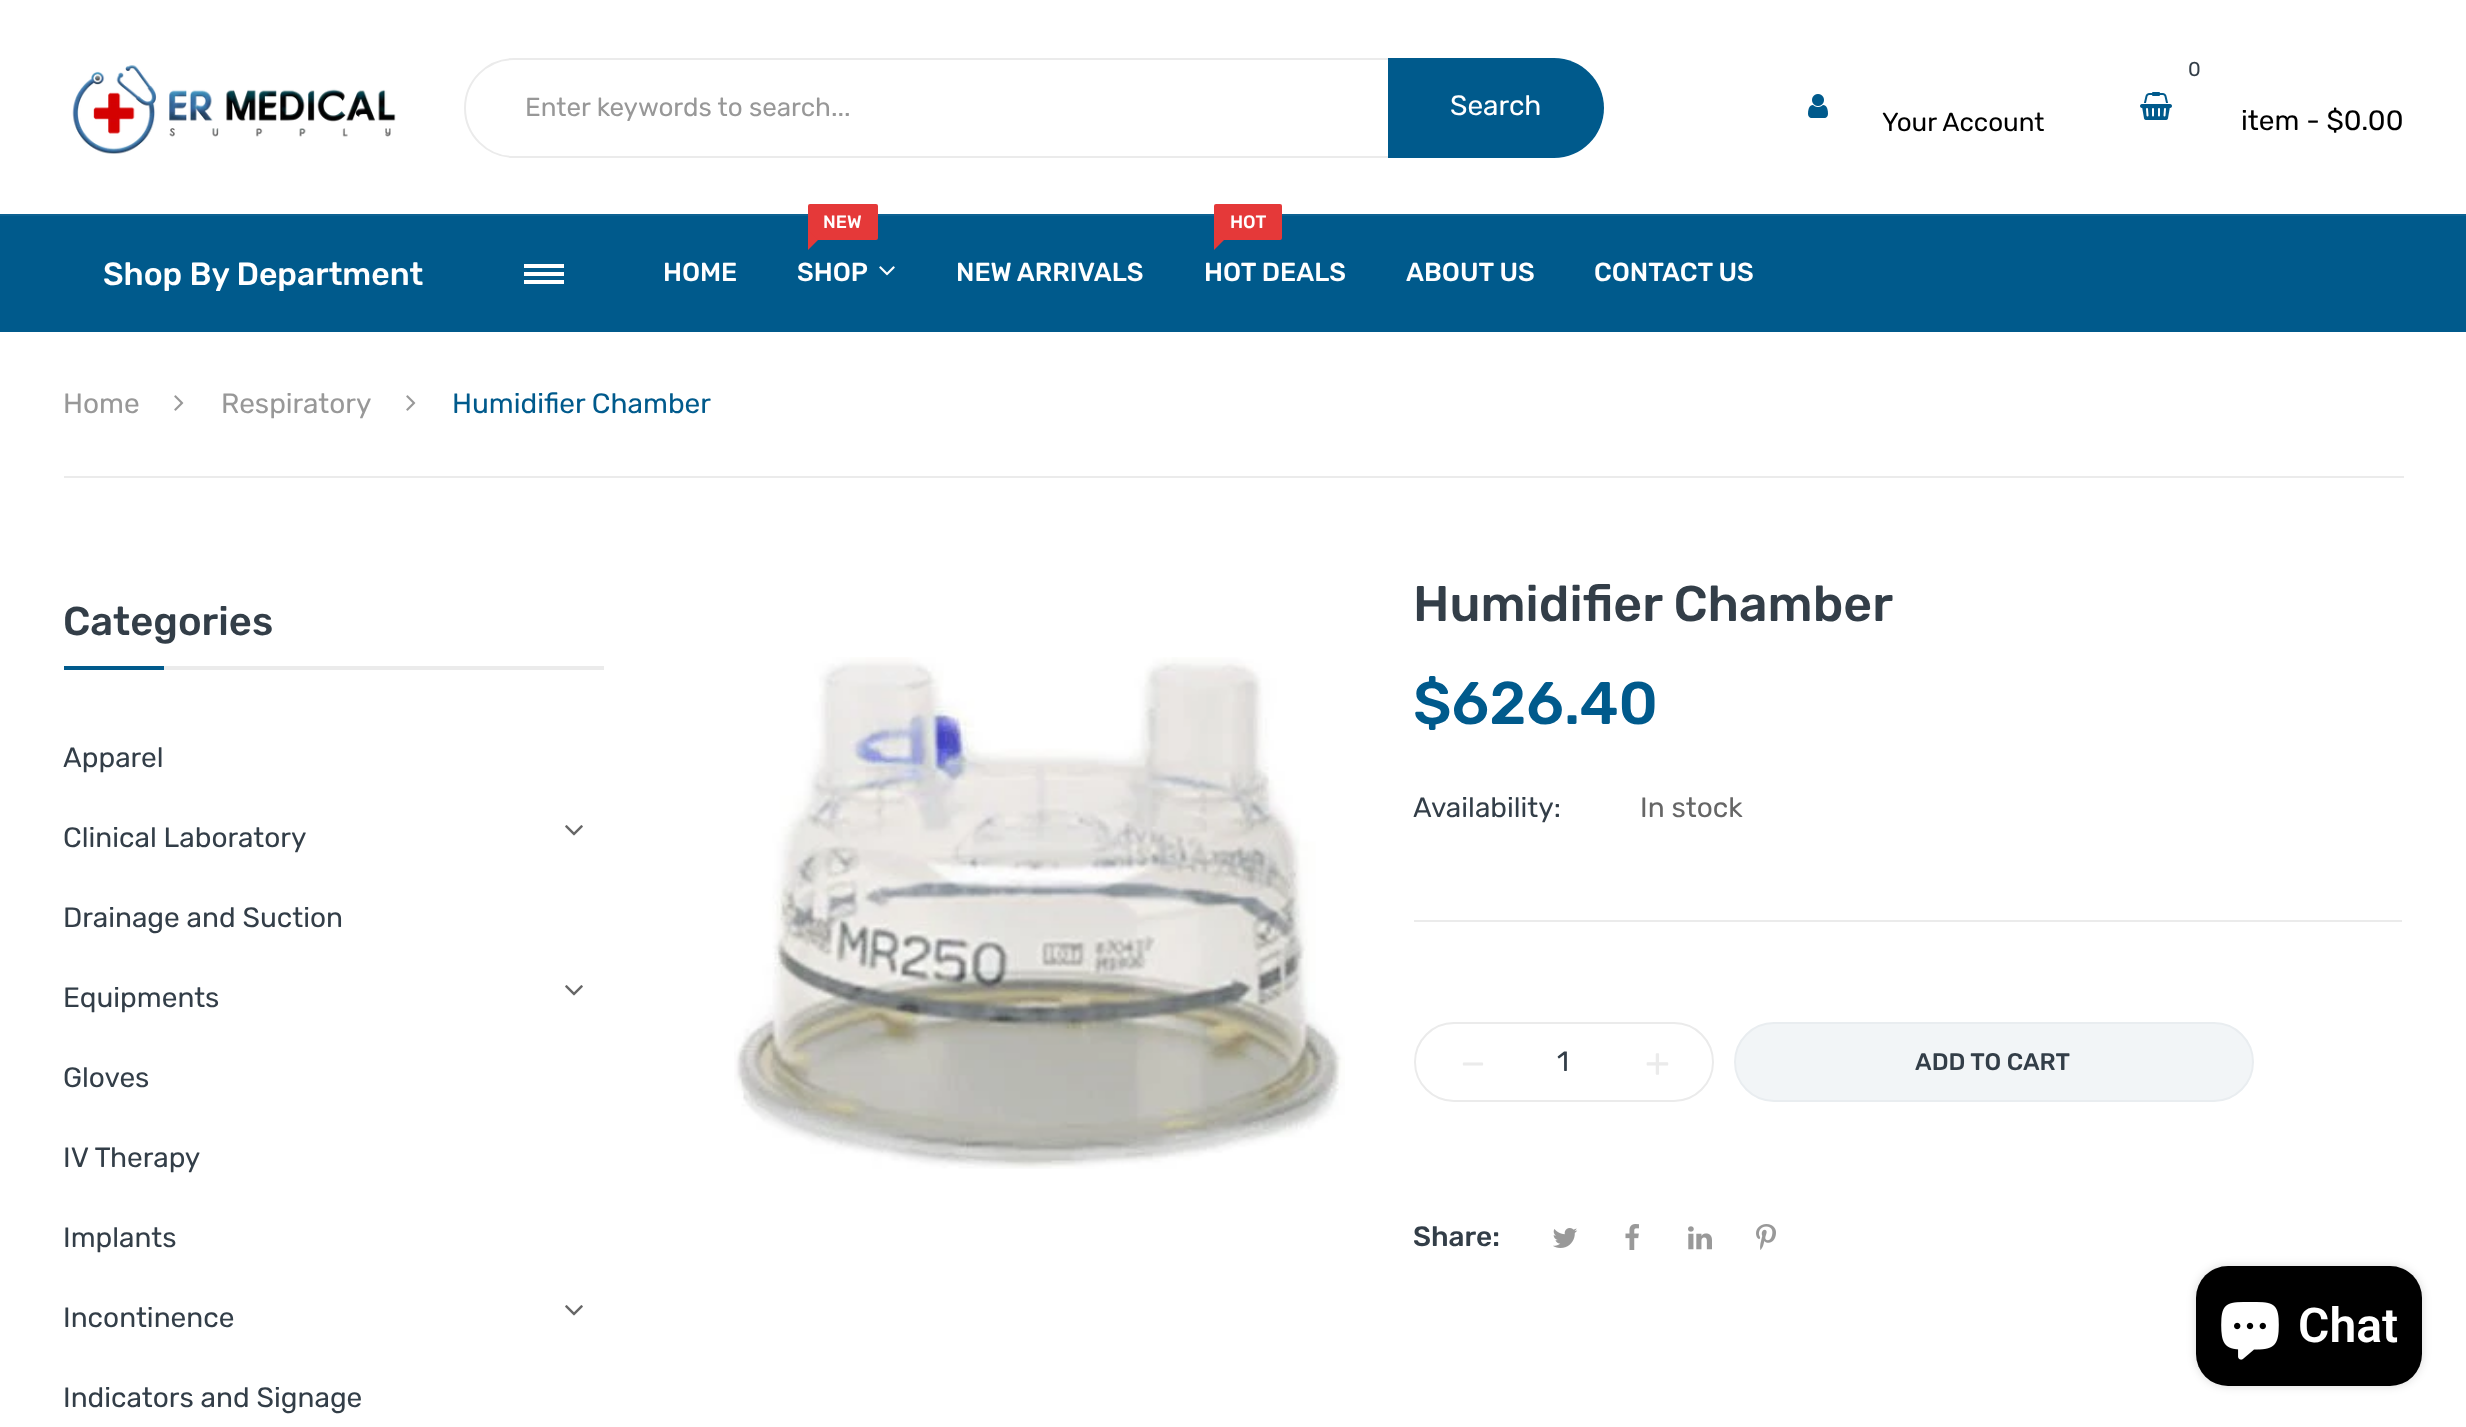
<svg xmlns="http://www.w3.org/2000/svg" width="2466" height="1427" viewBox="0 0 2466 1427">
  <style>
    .t1 { font: 26px Rubik; fill: #989898; }
    .t2 { font: 28px Rubik; fill: #fff; }
    .t3 { font: 26px Rubik; fill: #000; }
    .t4 { font: 20px Rubik; fill: #333e48; }
    .t5 { font: 28px Rubik; fill: #000; }
    .t6 { font: 500 32px Rubik; fill: #fff; }
    .t7 { font: 500 26px Rubik; fill: #fff; }
    .t8 { font: 500 18px Rubik; fill: #fff; }
    .t9 { font: 28px Rubik; fill: #989898; }
    .t10 { font: 28px Rubik; fill: #005a8c; }
    .t11 { font: 500 40px Rubik; fill: #333e48; }
    .t12 { font: 28px Rubik; fill: #333e48; }
    .t13 { font: 500 50px Rubik; fill: #333e48; }
    .t14 { font: 500 60px Rubik; fill: #005a8c; }
    .t15 { font: 28px Rubik; fill: #666; }
    .t16 { font: 40px Rubik; fill: #ebebeb; }
    .t17 { font: 500 24px Rubik; fill: #333e48; }
    .t18 { font: 500 28px Rubik; fill: #333e48; }
    .t19 { font: 600 48px Roboto; fill: #fff; }
  </style>
  <rect width="100%" height="100%" fill="#fff"/>
  <image x="72" y="65" width="324" height="89" href="images/1.png"/>
  <path d="M514 59H1389V157H514C487 157 465 135 465 108C465 81 487 59 514 59Z" fill="none" stroke="#ebebeb" stroke-width="2"/>
  <text x="525" y="116" class="t1">Enter keywords to search...</text>
  <path d="M1388 58H1554C1581.5 58 1604 80.5 1604 108C1604 135.5 1581.5 158 1554 158H1388Z" fill="#005a8c"/>
  <text x="1450" y="115" class="t2">Search</text>
  <image x="1808" y="94" width="20" height="24" href="images/2.png"/>
  <text x="1882" y="131" class="t3">Your Account</text>
  <image x="2140" y="92" width="32" height="28" href="images/3.png"/>
  <text x="2188" y="76" class="t4">0</text>
  <text x="2241" y="130" class="t5">item - $0.00</text>
  <rect x="0" y="216" width="2466" height="116" fill="#005a8c"/>
  <rect x="0" y="214" width="2466" height="2" fill="#0d6292"/>
  <text x="103" y="285" class="t6">Shop By Department</text>
  <rect x="524" y="264" width="40" height="4" fill="#fff"/>
  <rect x="524" y="272" width="40" height="4" fill="#fff"/>
  <rect x="524" y="280" width="40" height="4" fill="#fff"/>
  <text x="663" y="281" class="t7">HOME</text>
  <rect x="808" y="204" width="70" height="36" rx="2" fill="#e53939"/>
  <text x="823" y="228" class="t8">NEW</text>
  <path d="M808 250V230L818 240Z" fill="#e53939"/>
  <text x="797" y="281" class="t7">SHOP</text>
  <image x="879" y="266" width="16" height="10" href="images/4.png"/>
  <text x="956" y="281" class="t7">NEW ARRIVALS</text>
  <rect x="1214" y="204" width="68" height="36" rx="2" fill="#e53939"/>
  <text x="1230" y="228" class="t8">HOT</text>
  <path d="M1214 250V230L1224 240Z" fill="#e53939"/>
  <text x="1204" y="281" class="t7">HOT DEALS</text>
  <text x="1406" y="281" class="t7">ABOUT US</text>
  <text x="1594" y="281" class="t7">CONTACT US</text>
  <rect x="64" y="476" width="2340" height="2" fill="#ebebeb"/>
  <text x="63" y="413" class="t9">Home</text>
  <image x="174" y="395" width="10" height="16" href="images/5.png"/>
  <text x="221" y="413" class="t9">Respiratory</text>
  <image x="406" y="395" width="10" height="16" href="images/5.png"/>
  <text x="452" y="413" class="t10">Humidifier Chamber</text>
  <rect x="164" y="666" width="440" height="4" fill="#ebebeb"/>
  <text x="63" y="635" class="t11">Categories</text>
  <rect x="64" y="666" width="100" height="4" fill="#005a8c"/>
  <text x="63" y="767" class="t12">Apparel</text>
  <text x="63" y="847" class="t12">Clinical Laboratory</text>
  <image x="565" y="825" width="18" height="11" href="images/6.png"/>
  <text x="63" y="927" class="t12">Drainage and Suction</text>
  <text x="63" y="1007" class="t12">Equipments</text>
  <image x="565" y="985" width="18" height="11" href="images/6.png"/>
  <text x="63" y="1087" class="t12">Gloves</text>
  <text x="63" y="1167" class="t12">IV Therapy</text>
  <text x="63" y="1247" class="t12">Implants</text>
  <text x="63" y="1327" class="t12">Incontinence</text>
  <image x="565" y="1305" width="18" height="11" href="images/6.png"/>
  <text x="63" y="1407" class="t12">Indicators and Signage</text>
  <image x="734" y="657" width="611" height="512" href="images/7.png"/>
  <text x="1413" y="621" class="t13">Humidifier Chamber</text>
  <text x="1413" y="724" class="t14">$626.40</text>
  <text x="1413" y="817" class="t12">Availability:</text>
  <text x="1640" y="817" class="t15">In stock</text>
  <rect x="1414" y="920" width="988" height="2" fill="#ebebeb"/>
  <rect x="1415" y="1023" width="298" height="78" rx="39" fill="none" stroke="#ebebeb" stroke-width="2"/>
  <text x="1460" y="1076" class="t16">−</text>
  <text x="1557" y="1071" class="t12">1</text>
  <text x="1645" y="1076" class="t16">+</text>
  <rect x="1735" y="1023" width="518" height="78" rx="39" fill="#f2f5f7" stroke="#e9edf0" stroke-width="2"/>
  <text x="1915" y="1070" class="t17">ADD TO CART</text>
  <text x="1413" y="1246" class="t18">Share:</text>
  <image x="1553" y="1228" width="25" height="20" href="images/8.png"/>
  <image x="1625" y="1224" width="14" height="26" href="images/9.png"/>
  <image x="1688" y="1226" width="24" height="24" href="images/10.png"/>
  <image x="1756" y="1224" width="20" height="26" href="images/11.png"/>
  <rect x="2196" y="1266" width="226" height="120" rx="32" fill="#00000026" filter="blur(5px)"/>
  <rect x="2196" y="1266" width="226" height="120" rx="32" fill="#000"/>
  <image x="2221" y="1302" width="58" height="58" href="images/12.png"/>
  <text x="2298" y="1342" class="t19">Chat</text>
</svg>
